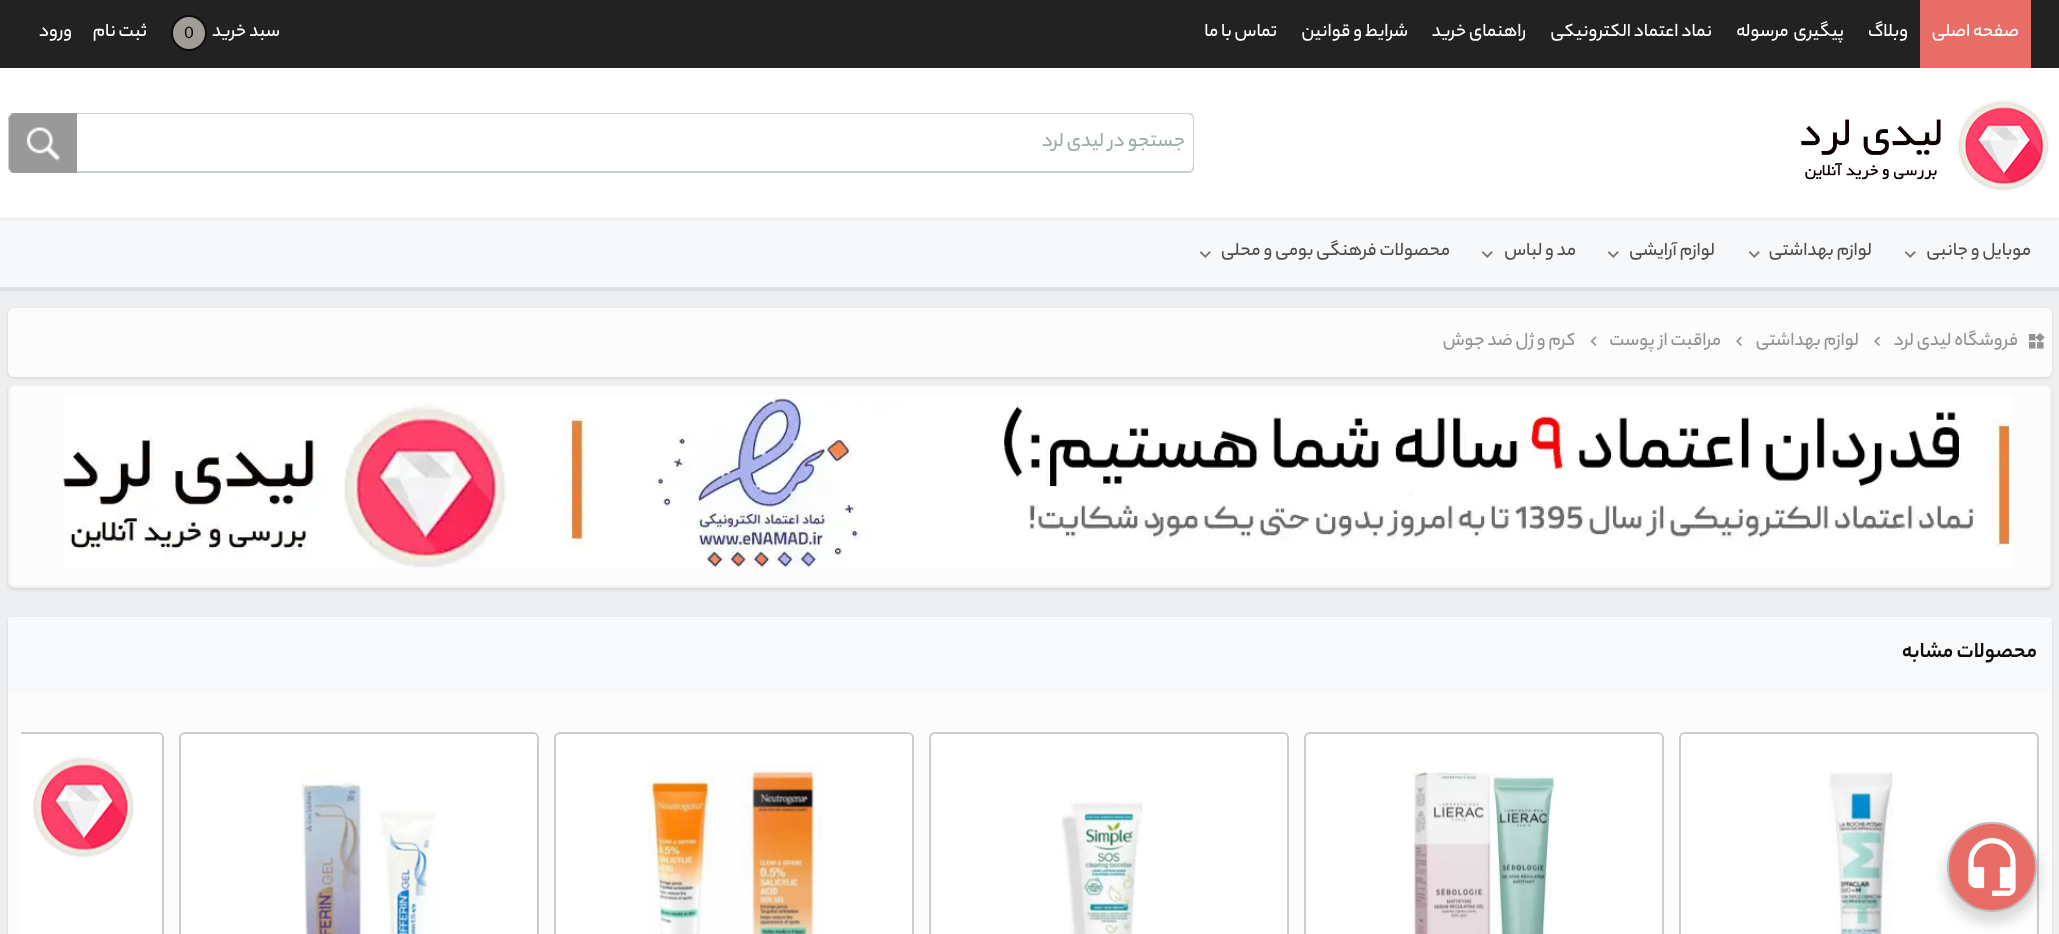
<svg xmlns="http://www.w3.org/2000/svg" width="2059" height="934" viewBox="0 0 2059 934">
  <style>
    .t1 { font: 500 19.5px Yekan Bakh; direction: rtl; fill: #fff; }
    .t2 { font: 500 18px Yekan Bakh; fill: #0d0c0c; }
    .t3 { font: 500 21px Yekan Bakh; direction: rtl; fill: #9eaca6; }
    .t4 { font: 500 19.5px Yekan Bakh; direction: rtl; fill: #4d4d4d; }
    .t5 { font: 500 19.5px Yekan Bakh; direction: rtl; fill: #929292; }
    .t6 { font: bold 22.5px Yekan Bakh; direction: rtl; fill: #0d0c0c; }
  </style>
  <defs>
    <clipPath id="clip1"><rect x="21" y="732" width="2018" height="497"/></clipPath>
  </defs>
  <rect width="100%" height="100%" fill="#eeeff1"/>
  <rect x="0" y="0" width="2059" height="68" fill="#222"/>
  <rect x="1920" y="0" width="111" height="68" fill="#e76d66"/>
  <text x="2019" y="36" class="t1">صفحه اصلی</text>
  <text x="1908" y="36" class="t1">وبلاگ</text>
  <text x="1844" y="36" word-spacing="2" class="t1">پیگیری مرسوله</text>
  <text x="1712" y="36" class="t1">نماد اعتماد الکترونیکی</text>
  <text x="1526" y="36" class="t1">راهنمای خرید</text>
  <text x="1408" y="36" class="t1">شرایط و قوانین</text>
  <text x="1277" y="36" class="t1">تماس با ما</text>
  <text x="280" y="36" class="t1">سبد خرید</text>
  <circle cx="189" cy="33" r="17" fill="#9f9d96" stroke="#0e0e0e" stroke-width="2"/>
  <text x="184" y="38" class="t2">0</text>
  <text x="147" y="36" class="t1">ثبت نام</text>
  <text x="72" y="36" class="t1">ورود</text>
  <rect x="0" y="68" width="2059" height="150" fill="#fff"/>
  <image x="1800" y="99" width="249" height="92" href="images/1.png"/>
  <rect x="9" y="114" width="1184" height="58" rx="4" fill="none" stroke="#c9d1d7" stroke-width="2"/>
  <path d="M9 114H1187C1190.5 114 1193 116.5 1193 120V165C1193 168.5 1190.5 171 1187 171H9Z" fill="#fff"/>
  <text x="1185" y="146" class="t3">جستجو در لیدی لرد</text>
  <path d="M15 113H77V173H15C11.5 173 9 170.5 9 167V119C9 115.5 11.5 113 15 113Z" fill="#999"/>
  <image x="26" y="127" width="35" height="34" href="images/2.png"/>
  <rect x="0" y="219" width="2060" height="71" fill="#0000001f" filter="blur(1.5px)"/>
  <rect x="0" y="220" width="2059" height="67" fill="#f7f8fa"/>
  <rect x="0" y="218" width="2059" height="2" fill="#eff0f2"/>
  <rect x="0" y="287" width="2059" height="2" fill="#e3e4e5"/>
  <text x="2031" y="255" class="t4">موبایل و جانبی</text>
  <image x="1904" y="251" width="12" height="7" href="images/3.png"/>
  <text x="1872" y="255" class="t4">لوازم بهداشتی</text>
  <image x="1748" y="251" width="12" height="7" href="images/3.png"/>
  <text x="1715" y="255" class="t4">لوازم آرایشی</text>
  <image x="1607" y="251" width="12" height="7" href="images/3.png"/>
  <text x="1576" y="255" class="t4">مد و لباس</text>
  <image x="1481" y="251" width="12" height="7" href="images/3.png"/>
  <text x="1450" y="255" class="t4">محصولات فرهنگی بومی و محلی</text>
  <image x="1199" y="251" width="12" height="7" href="images/3.png"/>
  <rect x="8" y="309" width="2044" height="69" rx="6" fill="#0000001a" filter="blur(1.5px)"/>
  <rect x="8" y="308" width="2044" height="69" rx="6" fill="#fcfcfc"/>
  <image x="2028" y="333" width="17" height="16" href="images/4.png"/>
  <text x="2018" y="345" class="t5">فروشگاه لیدی لرد</text>
  <image x="1874" y="336" width="6" height="10" href="images/5.png"/>
  <text x="1859" y="345" class="t5">لوازم بهداشتی</text>
  <image x="1736" y="336" width="6" height="10" href="images/5.png"/>
  <text x="1721" y="345" class="t5">مراقبت از پوست</text>
  <image x="1590" y="336" width="7" height="10" href="images/6.png"/>
  <text x="1575" y="345" class="t5">کرم و ژل ضد جوش</text>
  <rect x="8" y="386" width="2044" height="204" rx="6" fill="#0000001a" filter="blur(1.5px)"/>
  <rect x="9" y="385" width="2042" height="202" rx="5" fill="#fcfcfc" stroke="#f0f1f2" stroke-width="2"/>
  <image x="63" y="395" width="1950" height="174" href="images/7.png"/>
  <rect x="8" y="618" width="2044" height="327" rx="6" fill="#0000001a" filter="blur(1.5px)"/>
  <rect x="8" y="692" width="2044" height="242" fill="#fcfcfc"/>
  <rect x="8" y="617" width="2044" height="75" fill="#f7f9fa"/>
  <text x="2037" y="657" class="t6">محصولات مشابه</text>
  <rect x="1680" y="733" width="358" height="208" rx="5" fill="#fff" stroke="#ccc" stroke-width="2"/>
  <image x="1829" y="772" width="64" height="162" href="images/8.png"/>
  <rect x="1305" y="733" width="358" height="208" rx="5" fill="#fff" stroke="#ccc" stroke-width="2"/>
  <image x="1413" y="771" width="142" height="163" href="images/9.png"/>
  <rect x="930" y="733" width="358" height="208" rx="5" fill="#fff" stroke="#ccc" stroke-width="2"/>
  <image x="1061" y="802" width="82" height="132" href="images/10.png"/>
  <rect x="555" y="733" width="358" height="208" rx="5" fill="#fff" stroke="#ccc" stroke-width="2"/>
  <image x="647" y="763" width="176" height="171" href="images/11.png"/>
  <rect x="180" y="733" width="358" height="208" rx="5" fill="#fff" stroke="#ccc" stroke-width="2"/>
  <image x="301" y="770" width="135" height="164" href="images/12.png"/>
  <path d="M21 732H158C161.5 732 164 734.5 164 738V934C164 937.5 161.5 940 158 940H21Z" fill="#fff"/>
  <g clip-path="url(#clip1)">
    <rect x="-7" y="733" width="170" height="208" rx="5" fill="none" stroke="#ccc" stroke-width="2"/>
  </g>
  <image x="33" y="755" width="101" height="103" href="images/13.png"/>
  <rect x="1944" y="828" width="96" height="96" rx="48" fill="#00000024" filter="blur(6px)"/>
  <circle cx="1992" cy="867" r="44" fill="#e76d66" stroke="#bbb" stroke-width="2"/>
  <image x="1968" y="838" width="48" height="58" href="images/14.png"/>
</svg>
